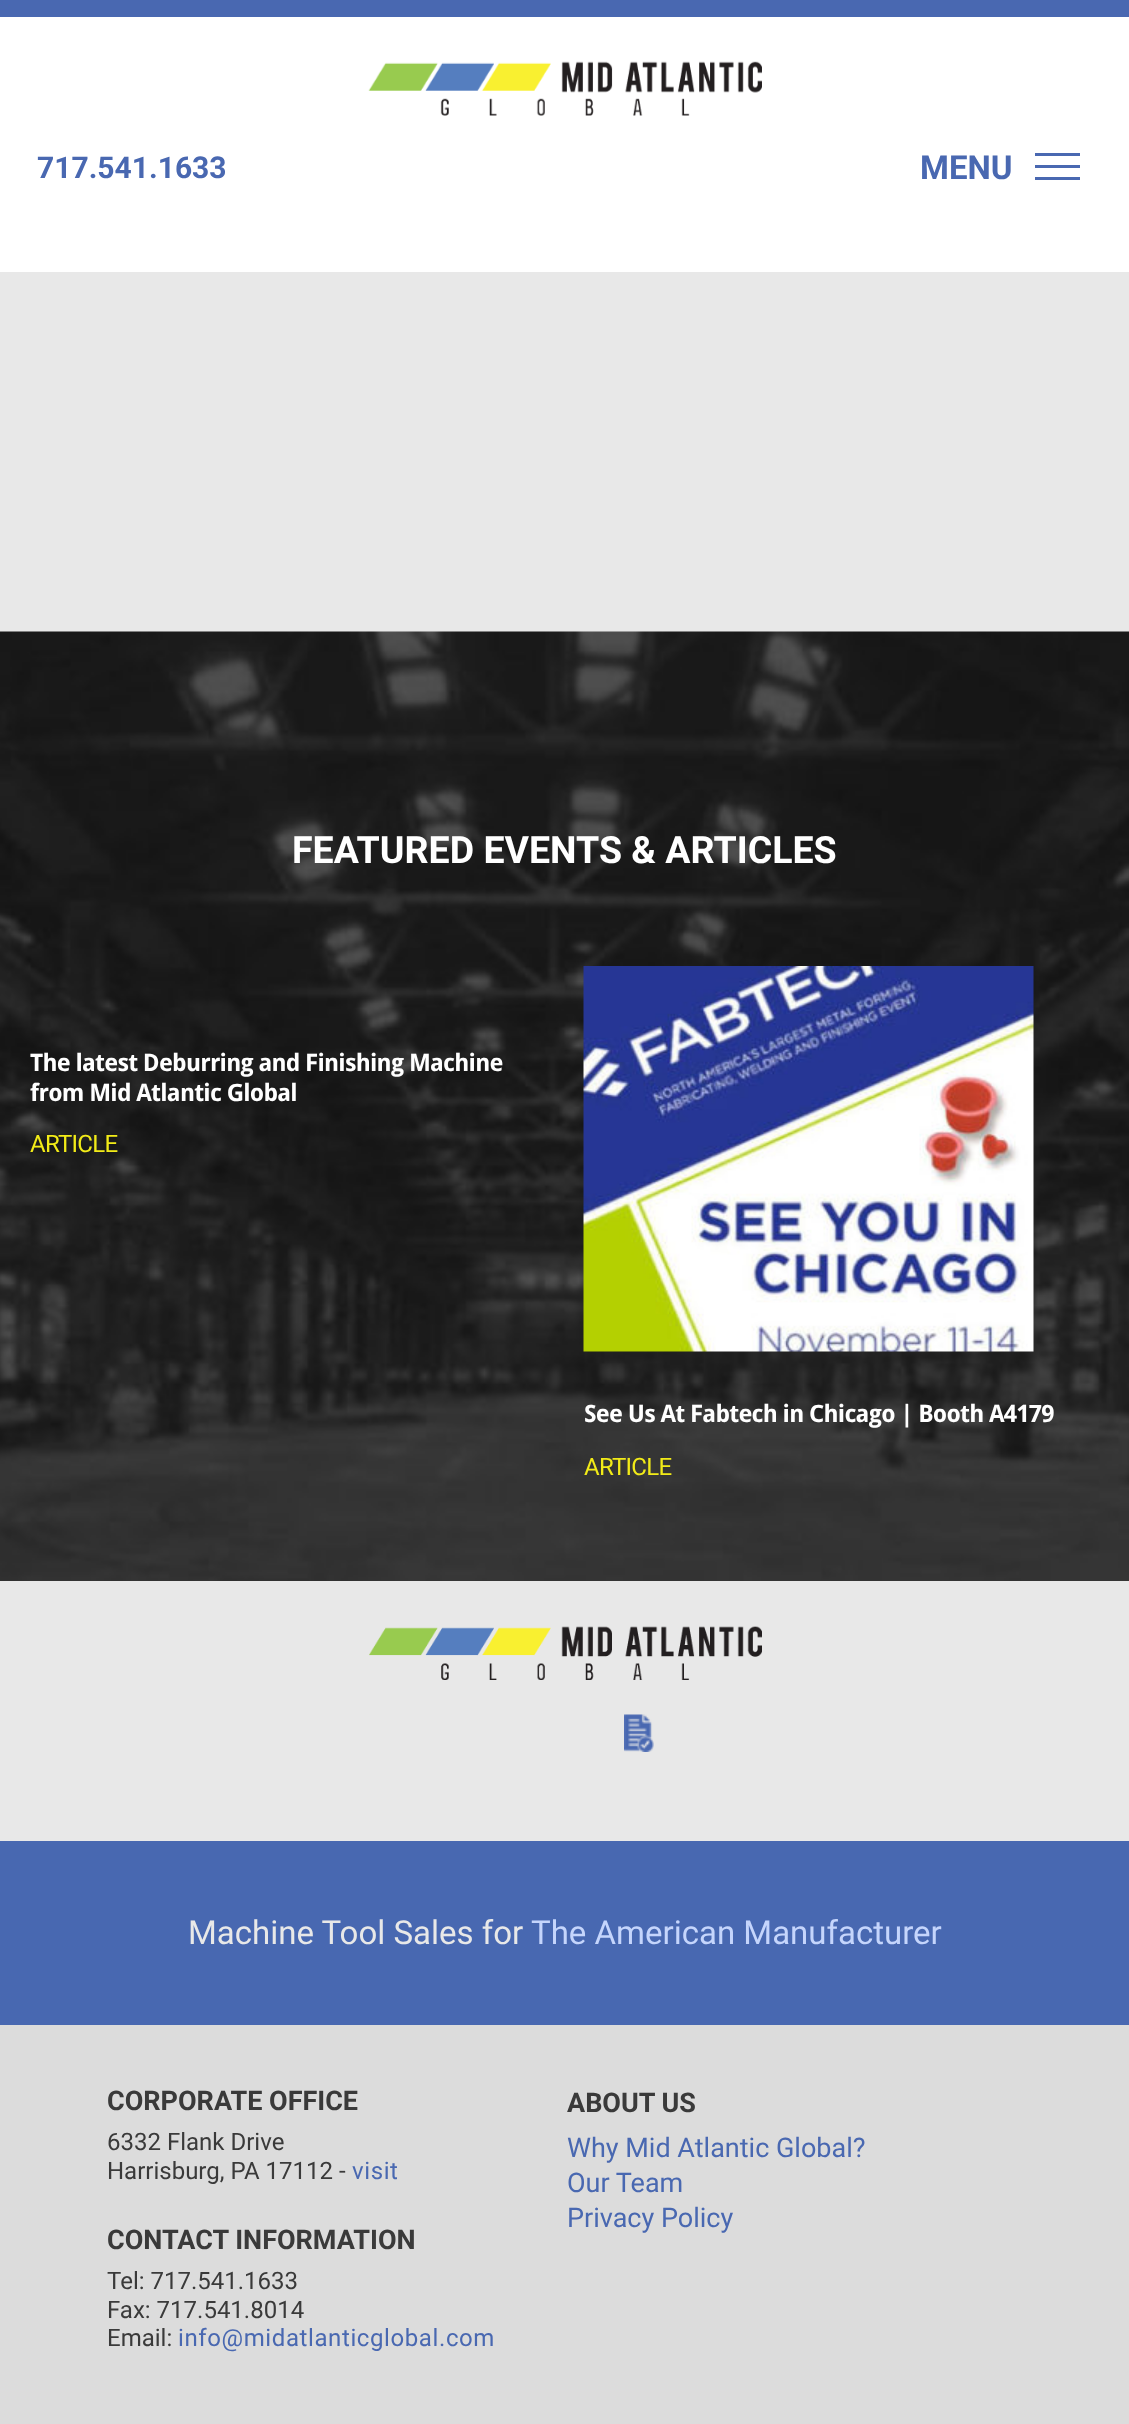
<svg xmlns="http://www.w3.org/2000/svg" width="1129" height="2424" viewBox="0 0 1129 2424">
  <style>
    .t1 { font: bold 30px Roboto; fill: #4968b1; }
    .t2 { font: bold 33px Roboto; fill: #4968b1; }
    .t3 { font: bold 37.5px Roboto; fill: #fff; }
    .t4 { font: bold 24px Droid Sans; letter-spacing: -0.75px; fill: #fff; }
    .t5 { font: 24px Roboto; letter-spacing: -0.75px; fill: #f2eb18; }
    .t6 { font: 33px Roboto; fill: #e8e8e8; }
    .t7 { font: 33px Roboto; fill: #c5d5fc; }
    .t8 { font: bold 27px Roboto; fill: #3a3a3a; }
    .t9 { font: 24px Roboto; fill: #3a3a3a; }
    .t10 { font: 24px Roboto; letter-spacing: 0.6px; fill: #4968b1; }
    .t11 { font: 27px Roboto; fill: #4968b1; }
  </style>
  <rect width="100%" height="100%" fill="#e8e8e8"/>
  <rect x="0" y="17" width="1129" height="255" fill="#fff"/>
  <rect x="0" y="0" width="1129" height="17" fill="#4968b1"/>
  <image x="368" y="61" width="394" height="55" href="images/1.png"/>
  <text x="37" y="178" class="t1">717.541.1633</text>
  <text x="920" y="179" class="t2">MENU</text>
  <rect x="1035" y="153" width="45" height="3" fill="#4968b1"/>
  <rect x="1035" y="165" width="45" height="3" fill="#4968b1"/>
  <rect x="1035" y="177" width="45" height="3" fill="#4968b1"/>
  <image x="0" y="631" width="1129" height="950" href="images/2.png"/>
  <text x="292" y="863" class="t3">FEATURED EVENTS &amp; ARTICLES</text>
  <text x="30" y="1071" class="t4">The latest Deburring and Finishing Machine</text>
  <text x="30" y="1101" class="t4">from Mid Atlantic Global</text>
  <text x="30" y="1152" class="t5">ARTICLE</text>
  <image x="583" y="966" width="451" height="386" href="images/3.png"/>
  <text x="584" y="1422" class="t4">See Us At Fabtech in Chicago | Booth A4179</text>
  <text x="584" y="1475" class="t5">ARTICLE</text>
  <image x="369" y="1626" width="393" height="54" href="images/4.png"/>
  <image x="624" y="1714" width="30" height="38" href="images/5.png"/>
  <rect x="0" y="1841" width="1129" height="184" fill="#4868b1"/>
  <text x="188" y="1944" class="t6">Machine Tool Sales for</text>
  <text x="531" y="1944" class="t7">The American Manufacturer</text>
  <rect x="0" y="2025" width="1129" height="399" fill="#dcdcdc"/>
  <text x="107" y="2110" class="t8">CORPORATE OFFICE</text>
  <text x="107" y="2150" class="t9">6332 Flank Drive</text>
  <text x="107" y="2179" class="t9">Harrisburg, PA 17112 -</text>
  <text x="352" y="2179" class="t10">visit</text>
  <text x="107" y="2249" class="t8">CONTACT INFORMATION</text>
  <text x="107" y="2289" class="t9">Tel: 717.541.1633</text>
  <text x="107" y="2318" class="t9">Fax: 717.541.8014</text>
  <text x="107" y="2346" class="t9">Email:</text>
  <text x="178" y="2346" class="t10">info@midatlanticglobal.com</text>
  <text x="567" y="2112" class="t8">ABOUT US</text>
  <text x="567" y="2157" class="t11">Why Mid Atlantic Global?</text>
  <text x="567" y="2192" class="t11">Our Team</text>
  <text x="567" y="2227" class="t11">Privacy Policy</text>
</svg>
